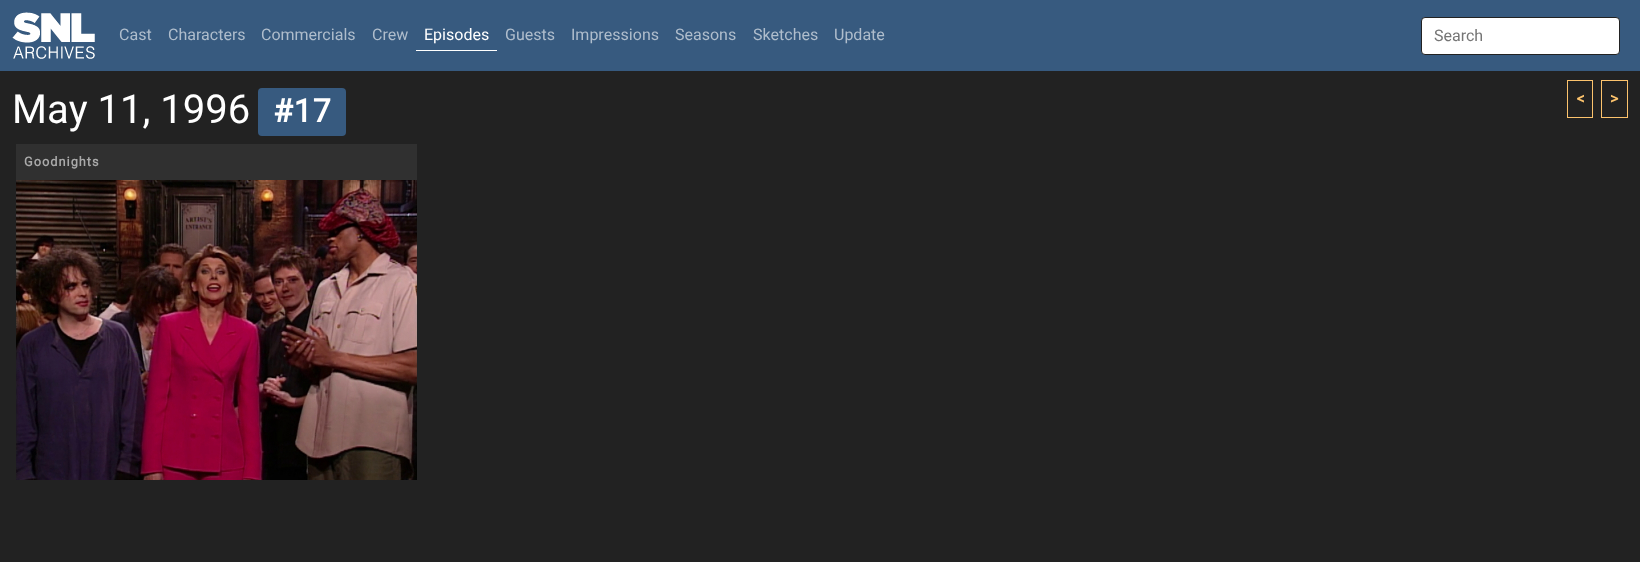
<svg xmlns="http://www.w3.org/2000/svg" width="1640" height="562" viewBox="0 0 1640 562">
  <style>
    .t1 { font: 16px Heebo; fill: #afbdcc; }
    .t2 { font: 16px Heebo; fill: #fff; }
    .t3 { font: 16px Heebo; fill: #757575; }
    .t4 { font: 40px Heebo; fill: #fff; }
    .t5 { font: bold 32px Heebo; letter-spacing: 1px; fill: #fff; }
    .t6 { font: bold 16px Heebo; fill: #fcc36d; }
    .t7 { font: bold 12.75px Heebo; letter-spacing: 1px; fill: #aaa; }
  </style>
  <rect width="100%" height="100%" fill="#222"/>
  <rect x="0" y="0" width="1640" height="71" fill="#375a7f"/>
  <image x="12" y="12" width="83" height="47" href="images/1.png"/>
  <text x="119" y="40" class="t1">Cast</text>
  <text x="168" y="40" class="t1">Characters</text>
  <text x="261" y="40" class="t1">Commercials</text>
  <text x="372" y="40" class="t1">Crew</text>
  <rect x="416" y="50" width="81" height="1" fill="#fff"/>
  <text x="424" y="40" class="t2">Episodes</text>
  <text x="505" y="40" class="t1">Guests</text>
  <text x="571" y="40" class="t1">Impressions</text>
  <text x="675" y="40" class="t1">Seasons</text>
  <text x="753" y="40" class="t1">Sketches</text>
  <text x="834" y="40" class="t1">Update</text>
  <rect x="1421.5" y="17.5" width="198" height="37" rx="3.5" fill="#fff" stroke="#222"/>
  <text x="1434" y="41" class="t3">Search</text>
  <text x="12" y="123" class="t4">May 11, 1996</text>
  <rect x="258" y="88" width="88" height="48" rx="4" fill="#375a7f"/>
  <text x="273" y="122" class="t5">#17</text>
  <rect x="1567.5" y="80.5" width="25" height="37" fill="none" stroke="#fcc36d"/>
  <text x="1576" y="104" class="t6">&lt;</text>
  <rect x="1601.5" y="80.5" width="26" height="37" fill="none" stroke="#fcc36d"/>
  <text x="1610" y="104" class="t6">&gt;</text>
  <rect x="16" y="144" width="401" height="36" fill="#303030"/>
  <text x="24" y="166" class="t7">Goodnights</text>
  <image x="16" y="180" width="401" height="300" href="images/2.png"/>
</svg>
